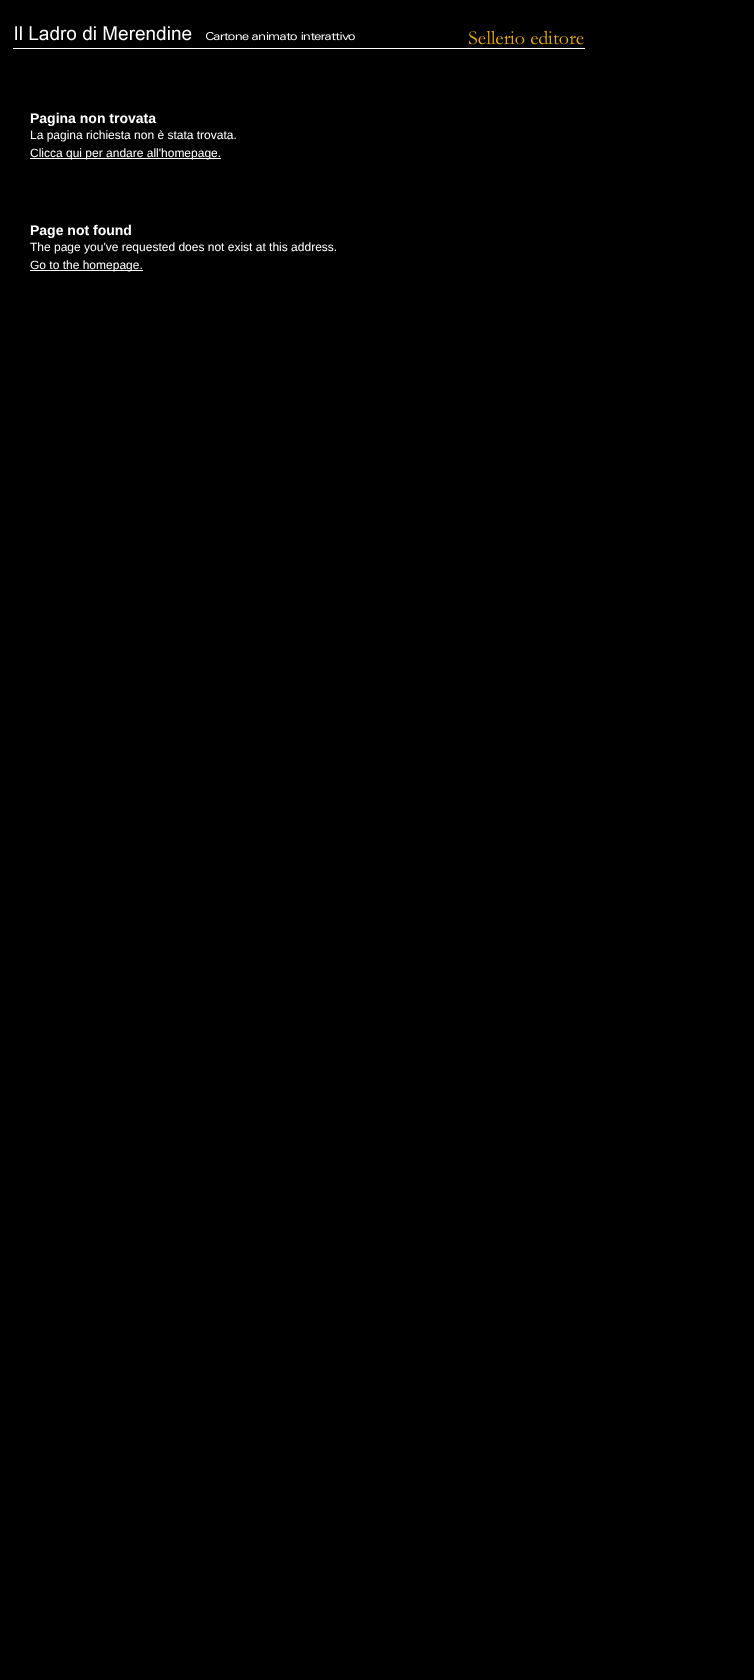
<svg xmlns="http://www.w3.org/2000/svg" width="754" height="1680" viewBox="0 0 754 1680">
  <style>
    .t1 { font: bold 14px Liberation Sans; fill: #fff; }
    .t2 { font: 12px Liberation Sans; fill: #fff; }
  </style>
  <rect width="100%" height="100%" fill="#000"/>
  <image x="13" y="26" width="572" height="23" href="images/1.png"/>
  <text x="30" y="123" class="t1">Pagina non trovata</text>
  <text x="30" y="139" class="t2">La pagina richiesta non è stata trovata.</text>
  <rect x="30" y="158" width="191" height="1" fill="#fff"/>
  <text x="30" y="157" class="t2">Clicca qui per andare all'homepage.</text>
  <text x="30" y="235" class="t1">Page not found</text>
  <text x="30" y="251" class="t2">The page you've requested does not exist at this address.</text>
  <rect x="30" y="270" width="113" height="1" fill="#fff"/>
  <text x="30" y="269" class="t2">Go to the homepage.</text>
</svg>
